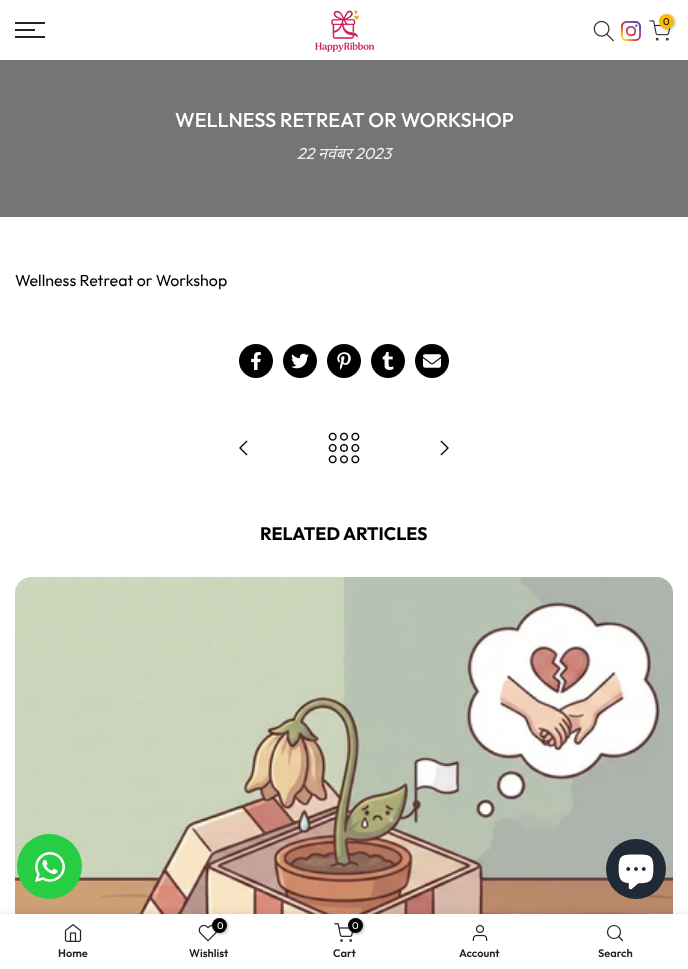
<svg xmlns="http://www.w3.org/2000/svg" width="688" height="969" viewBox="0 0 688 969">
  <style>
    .t1 { font: 10px Outfit; fill: #000; }
    .t2 { font: 500 20px Outfit; fill: #fff; }
    .t3 { font: italic 16px Outfit; fill: #ededed; }
    .t4 { font: italic 16px Noto Sans; fill: #ededed; }
    .t5 { font: 16px Outfit; fill: #000; }
    .t6 { font: bold 18px Outfit; fill: #000; }
    .t7 { font: 600 11px Outfit; fill: #222; }
    .t8 { font: 10px Outfit; fill: #fff; }
  </style>
  <rect width="100%" height="100%" fill="#fff"/>
  <rect x="15" y="22" width="30" height="2" fill="#242424"/>
  <rect x="15" y="29" width="20" height="2" fill="#242424"/>
  <rect x="15" y="36" width="30" height="2" fill="#242424"/>
  <image x="315" y="9" width="60" height="43" href="images/1.png"/>
  <image x="593" y="20" width="21" height="22" href="images/2.png"/>
  <image x="621" y="21" width="20" height="20" href="images/3.png"/>
  <image x="649" y="20" width="22" height="21" href="images/4.png"/>
  <rect x="660" y="15" width="15" height="15" rx="7.5" fill="#0000004d" filter="blur(1.5px)"/>
  <circle cx="666.5" cy="21.5" r="7.5" fill="#fabb05"/>
  <text x="663" y="25" class="t1">0</text>
  <rect x="0" y="60" width="688" height="157" fill="#757575"/>
  <text x="175" y="127" class="t2">WELLNESS RETREAT OR WORKSHOP</text>
  <text x="297" y="159" class="t3">22</text>
  <text x="318" y="159" class="t4">नवंबर</text>
  <text x="355" y="159" class="t3">2023</text>
  <text x="15" y="286" class="t5">Wellness Retreat or Workshop</text>
  <circle cx="256" cy="361" r="17" fill="#000"/>
  <image x="251" y="352" width="10" height="18" href="images/5.png"/>
  <circle cx="300" cy="361" r="17" fill="#000"/>
  <image x="291" y="353" width="18" height="16" href="images/6.png"/>
  <circle cx="344" cy="361" r="17" fill="#000"/>
  <image x="337" y="352" width="14" height="18" href="images/7.png"/>
  <circle cx="388" cy="361" r="17" fill="#000"/>
  <image x="382" y="352" width="12" height="18" href="images/8.png"/>
  <circle cx="432" cy="361" r="17" fill="#000"/>
  <image x="423" y="354" width="18" height="14" href="images/9.png"/>
  <image x="239" y="440" width="9" height="16" href="images/10.png"/>
  <image x="328" y="432" width="32" height="32" href="images/11.png"/>
  <image x="440" y="440" width="9" height="16" href="images/12.png"/>
  <text x="260" y="540" class="t6">RELATED ARTICLES</text>
  <image x="15" y="577" width="658" height="337" href="images/13.png"/>
  <circle cx="49.5" cy="866.5" r="32.5" fill="#27ce43"/>
  <image x="35" y="852" width="30" height="30" href="images/14.png"/>
  <circle cx="636" cy="869" r="30" fill="#202a36"/>
  <image x="618" y="854" width="36" height="36" href="images/15.png"/>
  <rect x="0" y="914" width="688" height="55" fill="#0000001f" filter="blur(4.5px)"/>
  <rect x="0" y="914" width="688" height="55" fill="#fff"/>
  <image x="64" y="924" width="18" height="18" href="images/16.png"/>
  <text x="58" y="957" class="t7">Home</text>
  <image x="198" y="924" width="19" height="18" href="images/17.png"/>
  <rect x="213" y="919" width="15" height="15" rx="7.5" fill="#0000004d" filter="blur(1.5px)"/>
  <circle cx="219.5" cy="925.5" r="7.5" fill="#000"/>
  <text x="217" y="929" class="t8">0</text>
  <text x="189" y="957" class="t7">Wishlist</text>
  <image x="334" y="923" width="19" height="19" href="images/18.png"/>
  <rect x="349" y="919" width="15" height="15" rx="7.5" fill="#0000004d" filter="blur(1.5px)"/>
  <circle cx="355.5" cy="925.5" r="7.5" fill="#000"/>
  <text x="352" y="929" class="t8">0</text>
  <text x="333" y="957" class="t7">Cart</text>
  <image x="472" y="924" width="16" height="18" href="images/19.png"/>
  <text x="459" y="957" class="t7">Account</text>
  <circle cx="614" cy="932" r="6.5" fill="none" stroke="#222" stroke-width="1.2"/>
  <path d="M622.5 940.5L619 937" fill="none" stroke="#222" stroke-width="1.2" stroke-linecap="round" stroke-linejoin="round"/>
  <text x="598" y="957" class="t7">Search</text>
</svg>
